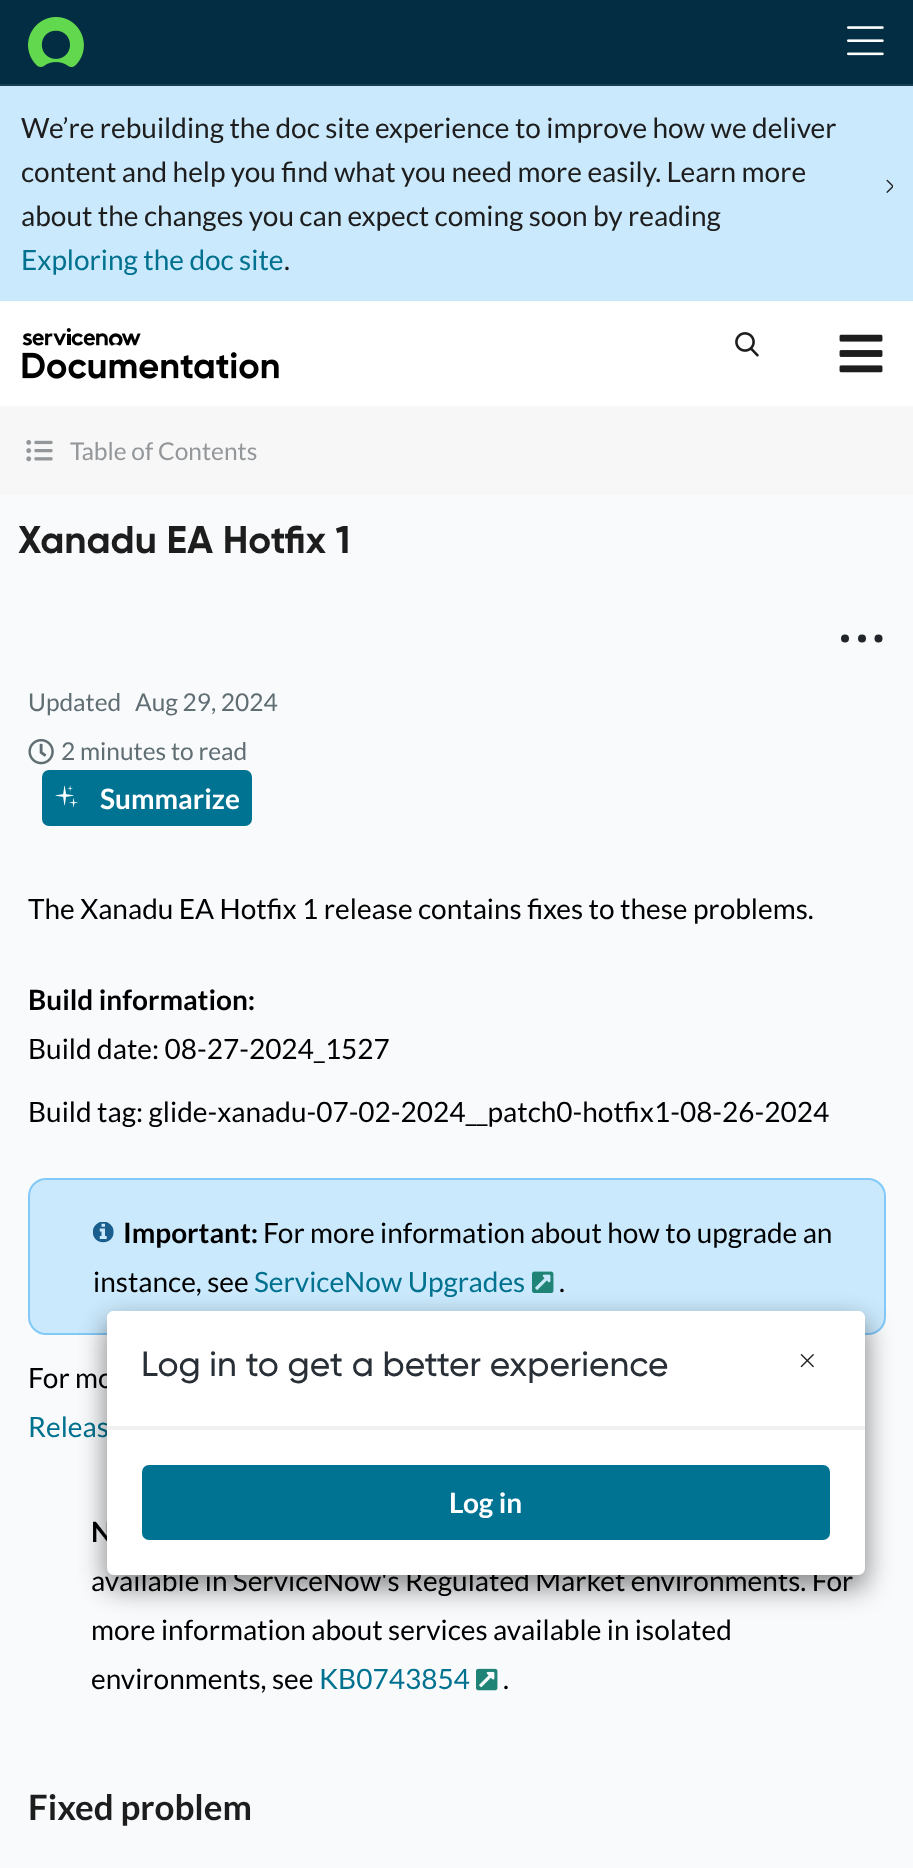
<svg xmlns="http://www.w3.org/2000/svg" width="913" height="1868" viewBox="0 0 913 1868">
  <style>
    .t1 { font: 28px Lato; fill: #1d1d1d; }
    .t2 { font: 28px Lato; fill: #00718f; }
    .t3 { font: 24.5px Lato; fill: #93979a; }
    .t4 { font: bold 38.5px Gilroy; fill: #1d1d1d; }
    .t5 { font: 24.5px Lato; fill: #606e74; }
    .t6 { font: bold 28px Lato; fill: #fff; }
    .t7 { font: 28px Lato; fill: #000; }
    .t8 { font: bold 28px Lato; fill: #000; }
    .t9 { font: bold 35px Lato; fill: #1d1d1d; }
    .t10 { font: 500 35px Gilroy; fill: #282f36; }
  </style>
  <rect width="100%" height="100%" fill="#fff"/>
  <rect x="0" y="0" width="913" height="84" fill="#032d42"/>
  <rect x="0" y="84" width="913" height="2" fill="#173e51"/>
  <image x="28" y="17" width="56" height="50" href="images/1.png"/>
  <image x="847" y="26" width="37" height="30" href="images/2.png"/>
  <rect x="0" y="86" width="913" height="215" fill="#cbe9fc"/>
  <text x="21" y="138" class="t1">We’re rebuilding the doc site experience to improve how we deliver</text>
  <text x="21" y="182" class="t1">content and help you find what you need more easily. Learn more</text>
  <text x="21" y="226" class="t1">about the changes you can expect coming soon by reading</text>
  <text x="21" y="270" class="t2">Exploring the doc site</text>
  <text x="284" y="270" class="t1">.</text>
  <image x="886" y="179" width="7" height="14" href="images/3.png"/>
  <image x="22" y="328" width="257" height="51" href="images/4.png"/>
  <image x="735" y="332" width="24" height="25" href="images/5.png"/>
  <image x="839" y="334" width="44" height="39" href="images/6.png"/>
  <rect x="0" y="495" width="913" height="1373" fill="#f8fafc"/>
  <rect x="0" y="406" width="913" height="89" fill="#f7f7f7"/>
  <image x="26" y="440" width="27" height="22" href="images/7.png"/>
  <text x="70" y="460" class="t3">Table of Contents</text>
  <text x="18" y="553" class="t4">Xanadu EA Hotfix 1</text>
  <circle cx="845" cy="638.5" r="4" fill="#212529"/>
  <circle cx="862" cy="638.5" r="4" fill="#212529"/>
  <circle cx="878.5" cy="638.5" r="4" fill="#212529"/>
  <text x="28" y="711" class="t5">Updated</text>
  <text x="135" y="711" class="t5">Aug 29, 2024</text>
  <image x="28" y="739" width="26" height="26" href="images/8.png"/>
  <text x="61" y="760" class="t5">2 minutes to read</text>
  <rect x="42" y="770" width="210" height="56" rx="7" fill="#007393"/>
  <image x="55" y="785" width="23" height="23" href="images/9.png"/>
  <text x="100" y="809" class="t6">Summarize</text>
  <text x="28" y="919" class="t7">The Xanadu EA Hotfix 1 release contains fixes to these problems.</text>
  <text x="28" y="1010" class="t8">Build information:</text>
  <text x="28" y="1059" class="t7">Build date: 08-27-2024_1527</text>
  <text x="28" y="1122" class="t7">Build tag: glide-xanadu-07-02-2024__patch0-hotfix1-08-26-2024</text>
  <rect x="29" y="1179" width="856" height="155" rx="17" fill="#cbe9fc" stroke="#82c9f8" stroke-width="2"/>
  <image x="93" y="1222" width="21" height="21" href="images/10.png"/>
  <text x="123" y="1243" class="t8">Important:</text>
  <text x="263" y="1243" class="t7">For more information about how to upgrade an</text>
  <text x="93" y="1292" class="t7">instance, see</text>
  <text x="254" y="1292" class="t2">ServiceNow Upgrades</text>
  <image x="532" y="1271" width="22" height="22" href="images/11.png"/>
  <text x="559" y="1292" class="t7">.</text>
  <text x="28" y="1388" class="t7">For mo</text>
  <text x="28" y="1437" class="t2">Releas</text>
  <text x="91" y="1542" class="t8">N</text>
  <text x="91" y="1591" class="t7">available in ServiceNow's Regulated Market environments. For</text>
  <text x="91" y="1640" class="t7">more information about services available in isolated</text>
  <text x="91" y="1689" class="t7">environments, see</text>
  <text x="319" y="1689" class="t2">KB0743854</text>
  <image x="476" y="1668" width="22" height="23" href="images/12.png"/>
  <text x="503" y="1689" class="t7">.</text>
  <text x="28" y="1820" class="t9">Fixed problem</text>
  <rect x="107" y="1320" width="758" height="264" rx="7" fill="#00000040" filter="blur(13px)"/>
  <rect x="107" y="1325" width="758" height="264" rx="7" fill="#00000045" filter="blur(14px)"/>
  <rect x="107" y="1311" width="758" height="264" rx="7" fill="#fff"/>
  <path d="M114 1311H858C862 1311 865 1314 865 1318V1428H107V1318C107 1314 110 1311 114 1311Z" fill="#fff"/>
  <rect x="107" y="1426" width="758" height="4" fill="#f1f1f1"/>
  <text x="141" y="1376" class="t10">Log in to get a better experience</text>
  <image x="800" y="1354" width="14" height="14" href="images/13.png"/>
  <rect x="142" y="1465" width="688" height="75" rx="7" fill="#007393"/>
  <text x="449" y="1513" class="t6">Log in</text>
</svg>
